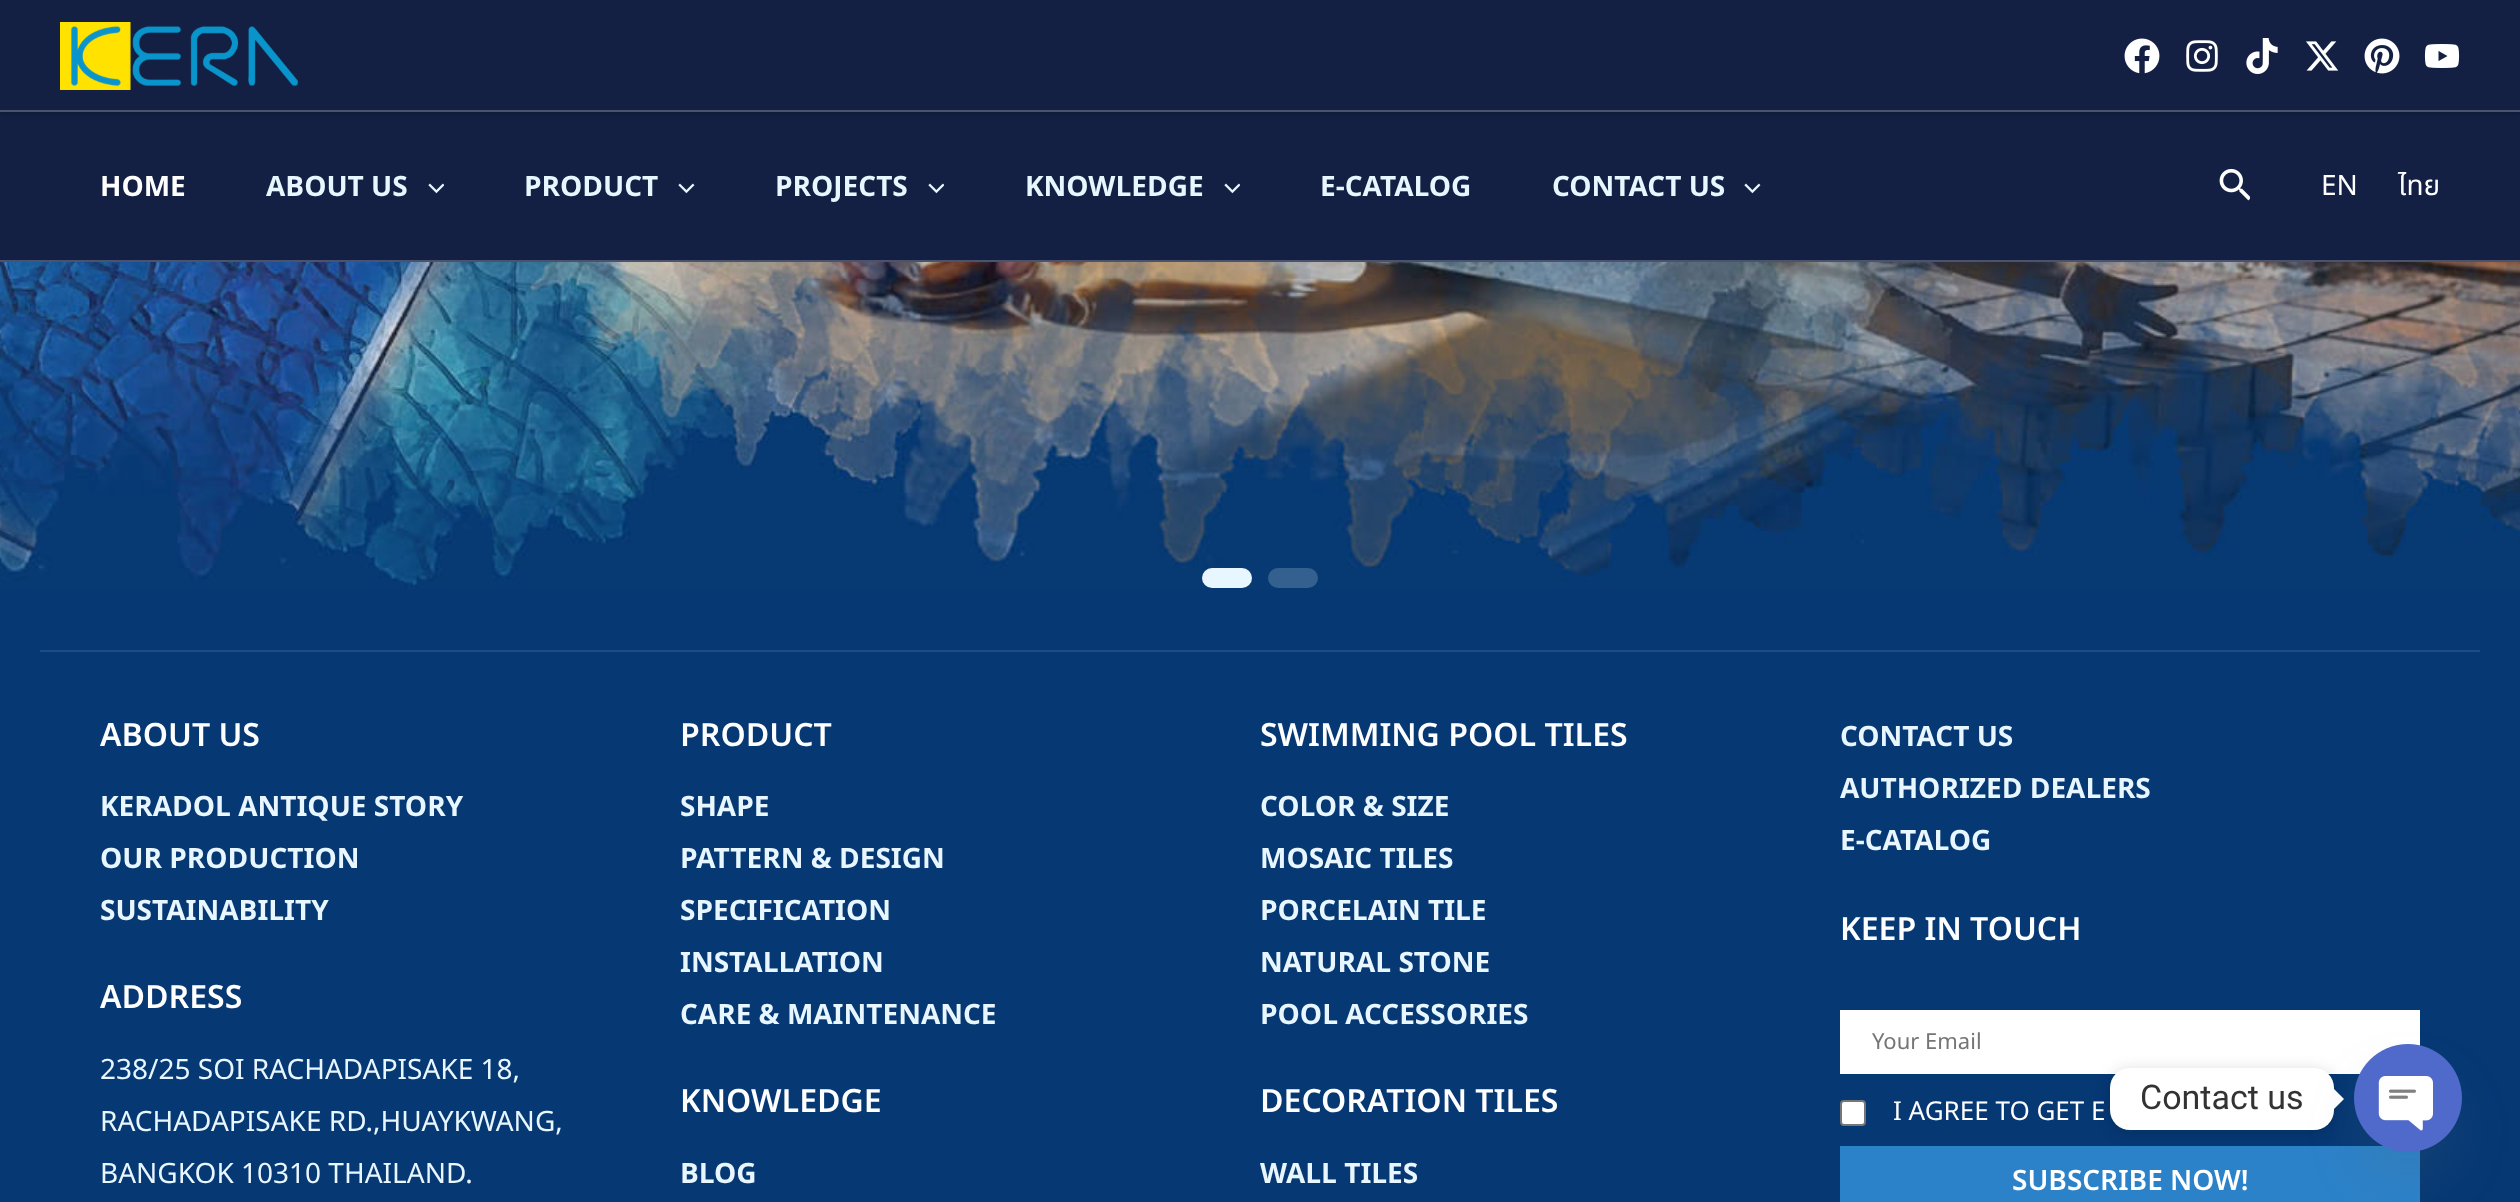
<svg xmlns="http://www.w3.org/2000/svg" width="2520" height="1202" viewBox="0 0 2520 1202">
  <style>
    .t1 { font: bold 28px Noto Sans Thai; fill: #fff; }
    .t2 { font: bold 28px Noto Sans Thai; fill: #e7f6ff; }
    .t3 { font: 28px Noto Sans Thai; fill: #fff; }
    .t4 { font: 600 32px Noto Sans Thai; fill: #fff; }
    .t5 { font: 28px Noto Sans Thai; fill: #e7f6ff; }
    .t6 { font: 22px Noto Sans Thai; fill: #757575; }
    .t7 { font: 26px Noto Sans Thai; fill: #fff; }
    .t8 { font: 600 28px Noto Sans Thai; fill: #fff; }
    .t9 { font: 34px Roboto; fill: #333; }
  </style>
  <rect width="100%" height="100%" fill="#063874"/>
  <rect x="0" y="112" width="2520" height="148" fill="#132043"/>
  <rect x="0" y="2" width="2520" height="112" fill="#00000033" filter="blur(2px)"/>
  <rect x="0" y="0" width="2520" height="110" fill="#132043"/>
  <rect x="0" y="110" width="2520" height="2" fill="#49536d"/>
  <image x="60" y="22" width="239" height="68" href="images/1.png"/>
  <image x="2124" y="38" width="36" height="36" href="images/2.png"/>
  <image x="2186" y="40" width="32" height="32" href="images/3.png"/>
  <image x="2246" y="38" width="32" height="36" href="images/4.png"/>
  <image x="2306" y="41" width="33" height="30" href="images/5.png"/>
  <image x="2364" y="38" width="36" height="36" href="images/6.png"/>
  <image x="2424" y="44" width="36" height="24" href="images/7.png"/>
  <rect x="0" y="260" width="2520" height="2" fill="#49536d"/>
  <text x="100" y="196" class="t1">HOME</text>
  <text x="266" y="196" class="t2">ABOUT US</text>
  <image x="428" y="183" width="16" height="11" href="images/8.png"/>
  <text x="524" y="196" class="t2">PRODUCT</text>
  <image x="678" y="183" width="17" height="11" href="images/9.png"/>
  <text x="775" y="196" class="t2">PROJECTS</text>
  <image x="928" y="183" width="16" height="11" href="images/8.png"/>
  <text x="1025" y="196" class="t2">KNOWLEDGE</text>
  <image x="1224" y="183" width="16" height="11" href="images/8.png"/>
  <text x="1320" y="196" class="t2">E-CATALOG</text>
  <text x="1552" y="196" class="t2">CONTACT US</text>
  <image x="1744" y="183" width="17" height="11" href="images/9.png"/>
  <image x="2219" y="168" width="31" height="33" href="images/10.png"/>
  <text x="2321" y="195" class="t3">EN</text>
  <text x="2398" y="195" class="t3">ไทย</text>
  <image x="0" y="262" width="2520" height="327" href="images/11.png"/>
  <rect x="1202" y="568" width="50" height="20" rx="10" fill="#e7f6ff"/>
  <rect x="1268" y="568" width="50" height="20" rx="10" fill="#34608f"/>
  <rect x="40" y="650" width="2440" height="2" fill="#1f4c82"/>
  <text x="100" y="746" class="t4">ABOUT US</text>
  <text x="100" y="816" class="t2">KERADOL ANTIQUE STORY</text>
  <text x="100" y="868" class="t2">OUR PRODUCTION</text>
  <text x="100" y="920" class="t2">SUSTAINABILITY</text>
  <text x="100" y="1008" class="t4">ADDRESS</text>
  <text x="100" y="1079" class="t5">238/25 SOI RACHADAPISAKE 18,</text>
  <text x="100" y="1131" class="t5">RACHADAPISAKE RD.,HUAYKWANG,</text>
  <text x="100" y="1183" class="t5">BANGKOK 10310 THAILAND.</text>
  <text x="680" y="746" class="t4">PRODUCT</text>
  <text x="680" y="816" class="t2">SHAPE</text>
  <text x="680" y="868" class="t2">PATTERN &amp; DESIGN</text>
  <text x="680" y="920" class="t2">SPECIFICATION</text>
  <text x="680" y="972" class="t2">INSTALLATION</text>
  <text x="680" y="1024" class="t2">CARE &amp; MAINTENANCE</text>
  <text x="680" y="1112" class="t4">KNOWLEDGE</text>
  <text x="680" y="1183" class="t2">BLOG</text>
  <text x="1260" y="746" class="t4">SWIMMING POOL TILES</text>
  <text x="1260" y="816" class="t2">COLOR &amp; SIZE</text>
  <text x="1260" y="868" class="t2">MOSAIC TILES</text>
  <text x="1260" y="920" class="t2">PORCELAIN TILE</text>
  <text x="1260" y="972" class="t2">NATURAL STONE</text>
  <text x="1260" y="1024" class="t2">POOL ACCESSORIES</text>
  <text x="1260" y="1112" class="t4">DECORATION TILES</text>
  <text x="1260" y="1183" class="t2">WALL TILES</text>
  <text x="1840" y="746" class="t2">CONTACT US</text>
  <text x="1840" y="798" class="t2">AUTHORIZED DEALERS</text>
  <text x="1840" y="850" class="t2">E-CATALOG</text>
  <text x="1840" y="940" class="t4">KEEP IN TOUCH</text>
  <rect x="1840" y="1010" width="580" height="64" fill="#fff"/>
  <text x="1872" y="1049" class="t6">Your Email</text>
  <rect x="1841" y="1101" width="24" height="24" rx="3" fill="#fff" stroke="#767676" stroke-width="2"/>
  <text x="1893" y="1120" class="t7">I AGREE TO GET E</text>
  <rect x="1840" y="1146" width="580" height="56" fill="#2c82c9"/>
  <text x="2012" y="1190" class="t8">SUBSCRIBE NOW!</text>
  <rect x="2110" y="1070" width="224" height="62" rx="20" fill="#00000026" filter="blur(7.5px)"/>
  <rect x="2110" y="1068" width="224" height="62" rx="20" fill="#fff"/>
  <text x="2140" y="1109" class="t9">Contact us</text>
  <path d="M2334 1109V1089L2344 1099Z" fill="#fff"/>
  <rect x="2354" y="1076" width="108" height="108" rx="54" fill="#49687e29" filter="blur(24px)"/>
  <image x="2354" y="1044" width="108" height="108" href="images/12.png"/>
</svg>
